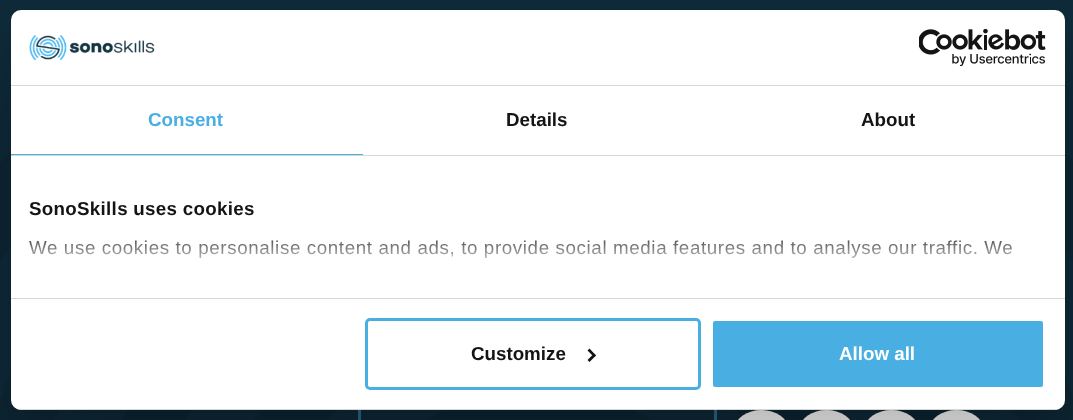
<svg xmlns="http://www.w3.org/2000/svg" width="1073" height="420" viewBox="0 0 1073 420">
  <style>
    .t1 { font: bold 18.75px Liberation Sans; fill: #49afe3; }
    .t2 { font: bold 18.75px Liberation Sans; fill: #141414; }
    .t3 { font: bold 18.75px Liberation Sans; letter-spacing: 0.3px; fill: #141414; }
    .t4 { font: 18.75px Liberation Sans; letter-spacing: 0.62px; fill: #141414; }
    .t5 { font: bold 18.75px Liberation Sans; fill: #fff; }
  </style>
  <defs>
    <linearGradient id="g1" gradientUnits="userSpaceOnUse" x1="529" y1="298" x2="529" y2="228"><stop offset="0" stop-color="#fff"/><stop offset="0.5" stop-color="#fff" stop-opacity="0.8"/><stop offset="1" stop-color="#fff" stop-opacity="0"/></linearGradient>
    <clipPath id="clip1"><rect x="11" y="10" width="1054" height="400" rx="10"/></clipPath>
  </defs>
  <rect width="100%" height="100%" fill="#0f2b3a"/>
  <image x="0" y="150" width="1073" height="270" href="images/3.png"/>
  <rect x="714" y="410" width="3" height="10" fill="#49afe380"/>
  <rect x="358" y="410" width="3" height="10" fill="#49afe380"/>
  <rect x="735" y="410" width="53" height="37" rx="26.5" fill="#fff"/>
  <rect x="800" y="410" width="53" height="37" rx="26.5" fill="#fff"/>
  <rect x="865" y="410" width="53" height="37" rx="26.5" fill="#fff"/>
  <rect x="930" y="410" width="53" height="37" rx="26.5" fill="#fff"/>
  <rect x="11" y="50" width="1054" height="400" rx="10" fill="#0000004d" filter="blur(42.5px)"/>
  <rect x="11" y="10" width="1054" height="400" rx="10" fill="#fff"/>
  <rect x="11" y="85" width="1054" height="1" fill="#d6d6d6"/>
  <image x="29" y="35" width="126" height="26" href="images/1.png"/>
  <image x="919" y="29" width="127" height="37" href="images/2.png"/>
  <rect x="11" y="155" width="1054" height="1" fill="#d6d6d6"/>
  <rect x="11" y="154" width="352" height="1" fill="#49afe3"/>
  <text x="148" y="126" class="t1">Consent</text>
  <text x="506" y="126" class="t2">Details</text>
  <text x="861" y="126" class="t2">About</text>
  <rect x="11" y="298" width="1054" height="1" fill="#d6d6d6"/>
  <text x="29" y="215" class="t3">SonoSkills uses cookies</text>
  <text x="29" y="254" class="t4">We use cookies to personalise content and ads, to provide social media features and to analyse our traffic. We</text>
  <rect x="28" y="240" width="985" height="18" fill="url(#g1)"/>
  <g clip-path="url(#clip1)">
    <rect x="11" y="409" width="1054" height="1" fill="#d6d6d6"/>
  </g>
  <rect x="366.5" y="319.5" width="333" height="69" rx="3.5" fill="none" stroke="#49afe3" stroke-width="3"/>
  <text x="471" y="360" class="t2">Customize</text>
  <path d="M589.5 348.5L596 355.5L594 357L587.5 350.5Z" fill="#141414"/>
  <path d="M594 353.5L596 355.5L589.5 362L587.5 360Z" fill="#141414"/>
  <rect x="711.5" y="319.5" width="333" height="69" rx="3.5" fill="#49afe3" stroke="#fff" stroke-width="3"/>
  <text x="839" y="360" class="t5">Allow all</text>
</svg>
